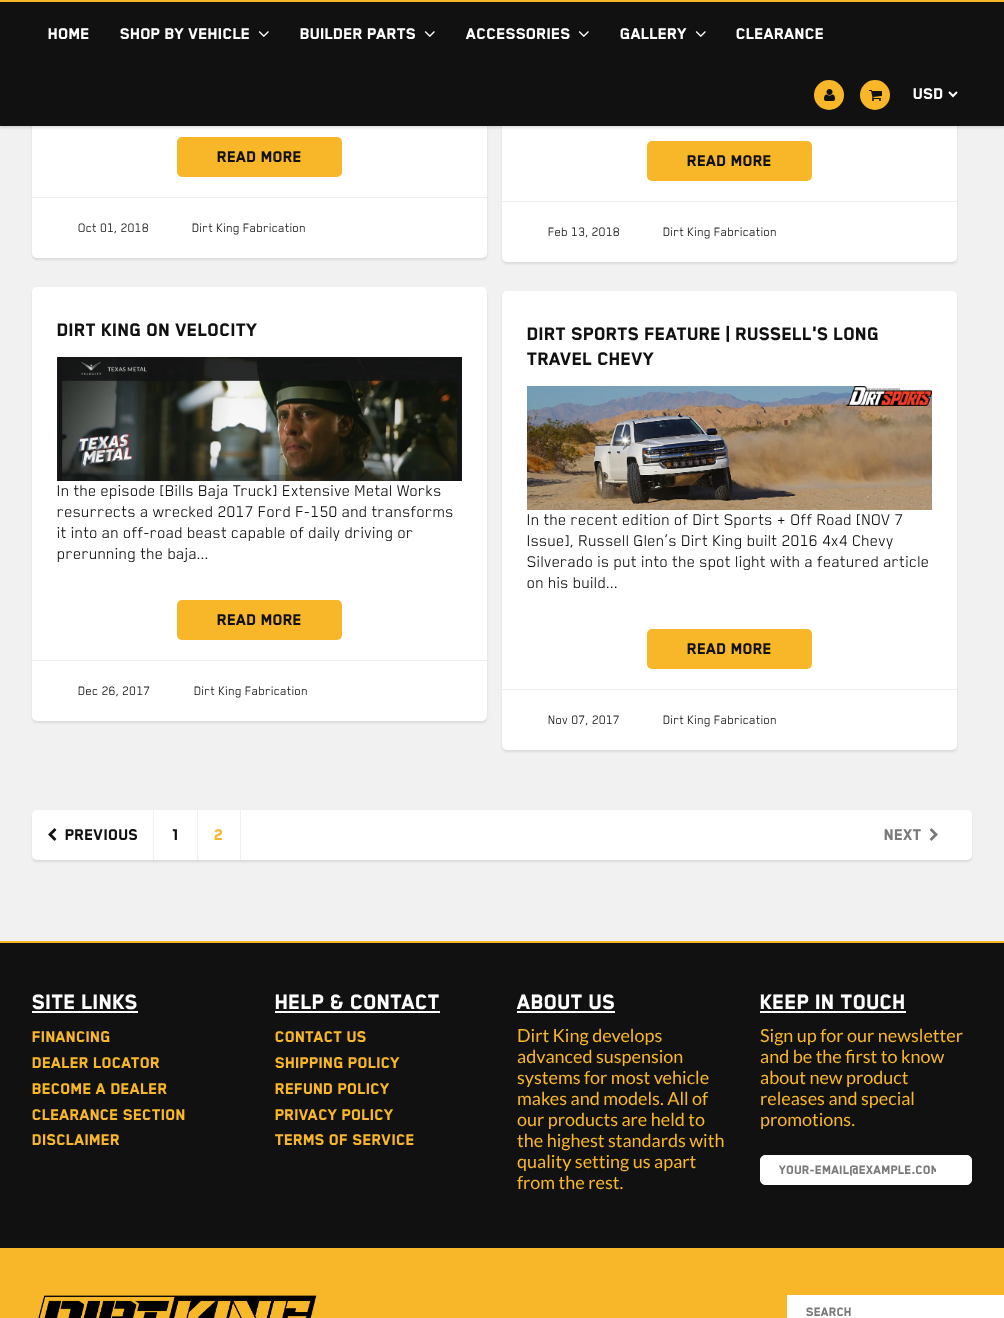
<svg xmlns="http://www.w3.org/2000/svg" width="1004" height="1318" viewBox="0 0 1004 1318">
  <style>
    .t1 { font: 900 18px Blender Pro; fill: #fff; }
    .t2 { font: 900 18px Blender Pro; fill: #111; }
    .t3 { font: 14px Blender Pro; fill: #111; }
    .t4 { font: 900 21px Blender Pro; fill: #111; }
    .t5 { font: 18px Blender Pro; fill: #111; }
    .t6 { font: 900 18px Blender Pro; fill: #f7b728; }
    .t7 { font: 900 18px Blender Pro; fill: #7a7a7a; }
    .t8 { font: 900 24px Blender Pro; fill: #fff; }
    .t9 { font: 18px Lato; fill: #f7b728; }
    .t10 { font: 900 14px Blender Pro; fill: #7a7a7a; }
  </style>
  <defs>
    <clipPath id="clip1"><rect x="779" y="1162" width="157" height="17"/></clipPath>
  </defs>
  <rect width="100%" height="100%" fill="#f1f1f1"/>
  <rect x="32" y="-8" width="455" height="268" rx="5" fill="#0b191c1a" filter="blur(1px)"/>
  <rect x="32" y="-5" width="455" height="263" rx="5" fill="#fff"/>
  <rect x="502" y="-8" width="455" height="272" rx="5" fill="#0b191c1a" filter="blur(1px)"/>
  <rect x="502" y="-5" width="455" height="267" rx="5" fill="#fff"/>
  <rect x="0" y="2" width="1004" height="126" fill="#0b191c1f" filter="blur(1px)"/>
  <rect x="0" y="2" width="1004" height="124" fill="#111"/>
  <rect x="0" y="0" width="1004" height="2" fill="#f7b728"/>
  <text x="48" y="39" class="t1">HOME</text>
  <text x="120" y="39" class="t1">SHOP BY VEHICLE</text>
  <image x="258" y="31" width="11" height="6" href="images/1.png"/>
  <text x="300" y="39" class="t1">BUILDER PARTS</text>
  <image x="424" y="31" width="11" height="6" href="images/1.png"/>
  <text x="466" y="39" class="t1">ACCESSORIES</text>
  <image x="578" y="31" width="11" height="6" href="images/1.png"/>
  <text x="620" y="39" class="t1">GALLERY</text>
  <image x="695" y="31" width="11" height="6" href="images/1.png"/>
  <text x="736" y="39" class="t1">CLEARANCE</text>
  <circle cx="829" cy="95" r="15" fill="#f7b728"/>
  <image x="824" y="89" width="11" height="12" href="images/2.png"/>
  <circle cx="875" cy="95" r="15" fill="#f7b728"/>
  <image x="869" y="90" width="13" height="11" href="images/3.png"/>
  <path d="M949 92L953 96L957 92" fill="none" stroke="#fff" stroke-width="2"/>
  <text x="913" y="99" class="t1">USD</text>
  <rect x="177" y="137" width="165" height="40" rx="5" fill="#f7b728"/>
  <text x="217" y="162" class="t2">Read More</text>
  <rect x="32" y="197" width="455" height="1" fill="#efefef"/>
  <text x="78" y="232" class="t3">Oct 01, 2018</text>
  <text x="192" y="232" class="t3">Dirt King Fabrication</text>
  <rect x="647" y="141" width="165" height="40" rx="5" fill="#f7b728"/>
  <text x="687" y="166" class="t2">Read More</text>
  <rect x="502" y="201" width="455" height="1" fill="#efefef"/>
  <text x="548" y="236" class="t3">Feb 13, 2018</text>
  <text x="663" y="236" class="t3">Dirt King Fabrication</text>
  <rect x="32" y="289" width="455" height="434" rx="5" fill="#0b191c1a" filter="blur(1px)"/>
  <rect x="32" y="287" width="455" height="434" rx="5" fill="#fff"/>
  <text x="57" y="336" class="t4">Dirt King on Velocity</text>
  <image x="57" y="357" width="405" height="124" href="images/4.png"/>
  <text x="57" y="496" class="t5">In the episode [Bills Baja Truck] Extensive Metal Works</text>
  <text x="57" y="517" class="t5">resurrects a wrecked 2017 Ford F-150 and transforms</text>
  <text x="57" y="538" class="t5">it into an off-road beast capable of daily driving or</text>
  <text x="57" y="559" class="t5">prerunning the baja...</text>
  <rect x="177" y="600" width="165" height="40" rx="5" fill="#f7b728"/>
  <text x="217" y="625" class="t2">Read More</text>
  <rect x="32" y="660" width="455" height="1" fill="#efefef"/>
  <text x="78" y="695" class="t3">Dec 26, 2017</text>
  <text x="194" y="695" class="t3">Dirt King Fabrication</text>
  <rect x="502" y="293" width="455" height="459" rx="5" fill="#0b191c1a" filter="blur(1px)"/>
  <rect x="502" y="291" width="455" height="459" rx="5" fill="#fff"/>
  <text x="527" y="340" class="t4">Dirt Sports Feature | Russell's Long</text>
  <text x="527" y="365" class="t4">Travel Chevy</text>
  <image x="527" y="386" width="405" height="124" href="images/5.png"/>
  <text x="527" y="525" class="t5">In the recent edition of Dirt Sports + Off Road [NOV 7</text>
  <text x="527" y="546" class="t5">Issue], Russell Glen’s Dirt King built 2016 4x4 Chevy</text>
  <text x="527" y="567" class="t5">Silverado is put into the spot light with a featured article</text>
  <text x="527" y="588" class="t5">on his build...</text>
  <rect x="647" y="629" width="165" height="40" rx="5" fill="#f7b728"/>
  <text x="687" y="654" class="t2">Read More</text>
  <rect x="502" y="689" width="455" height="1" fill="#efefef"/>
  <text x="548" y="724" class="t3">Nov 07, 2017</text>
  <text x="663" y="724" class="t3">Dirt King Fabrication</text>
  <rect x="32" y="812" width="940" height="50" rx="5" fill="#0b191c1a" filter="blur(1px)"/>
  <rect x="32" y="810" width="940" height="50" rx="5" fill="#fff"/>
  <image x="48" y="828" width="9" height="13" href="images/6.png"/>
  <text x="65" y="840" class="t2">Previous</text>
  <rect x="153" y="810" width="1" height="50" fill="#efefef"/>
  <text x="171" y="840" class="t2">1</text>
  <rect x="240" y="810" width="1" height="50" fill="#efefef"/>
  <rect x="197" y="810" width="1" height="50" fill="#efefef"/>
  <text x="214" y="840" class="t6">2</text>
  <text x="884" y="840" class="t7">Next</text>
  <image x="929" y="828" width="9" height="13" href="images/7.png"/>
  <rect x="0" y="1248" width="1004" height="70" fill="#f7b728"/>
  <rect x="0" y="944" width="1004" height="307" fill="#f7b728" filter="blur(1.5px)"/>
  <rect x="0" y="943" width="1004" height="305" fill="#111"/>
  <rect x="0" y="941" width="1004" height="2" fill="#f7b728"/>
  <text x="32" y="1009" class="t8">Site Links</text>
  <rect x="32" y="1011" width="106" height="2" fill="#fff"/>
  <text x="32" y="1042" class="t6">Financing</text>
  <text x="32" y="1068" class="t6">Dealer Locator</text>
  <text x="32" y="1094" class="t6">Become a Dealer</text>
  <text x="32" y="1120" class="t6">Clearance Section</text>
  <text x="32" y="1145" class="t6">Disclaimer</text>
  <text x="275" y="1009" class="t8">Help &amp; Contact</text>
  <rect x="275" y="1011" width="165" height="2" fill="#fff"/>
  <text x="275" y="1042" class="t6">Contact Us</text>
  <text x="275" y="1068" class="t6">Shipping Policy</text>
  <text x="275" y="1094" class="t6">Refund Policy</text>
  <text x="275" y="1120" class="t6">Privacy Policy</text>
  <text x="275" y="1145" class="t6">Terms of Service</text>
  <text x="517" y="1009" class="t8">About Us</text>
  <rect x="517" y="1011" width="98" height="2" fill="#fff"/>
  <text x="517" y="1042" class="t9">Dirt King develops</text>
  <text x="517" y="1063" class="t9">advanced suspension</text>
  <text x="517" y="1084" class="t9">systems for most vehicle</text>
  <text x="517" y="1105" class="t9">makes and models. All of</text>
  <text x="517" y="1126" class="t9">our products are held to</text>
  <text x="517" y="1147" class="t9">the highest standards with</text>
  <text x="517" y="1168" class="t9">quality setting us apart</text>
  <text x="517" y="1189" class="t9">from the rest.</text>
  <text x="760" y="1009" class="t8">Keep in Touch</text>
  <rect x="760" y="1011" width="146" height="2" fill="#fff"/>
  <text x="760" y="1042" class="t9">Sign up for our newsletter</text>
  <text x="760" y="1063" class="t9">and be the first to know</text>
  <text x="760" y="1084" class="t9">about new product</text>
  <text x="760" y="1105" class="t9">releases and special</text>
  <text x="760" y="1126" class="t9">promotions.</text>
  <rect x="760.5" y="1155.5" width="211" height="29" rx="4.5" fill="#fff" stroke="#fff"/>
  <g clip-path="url(#clip1)">
    <text x="779" y="1174" class="t10">your-email@example.com</text>
  </g>
  <image x="38" y="1295" width="279" height="23" href="images/8.png"/>
  <rect x="787" y="1295" width="217" height="23" fill="#fff"/>
  <text x="806" y="1316" class="t10">Search</text>
</svg>
